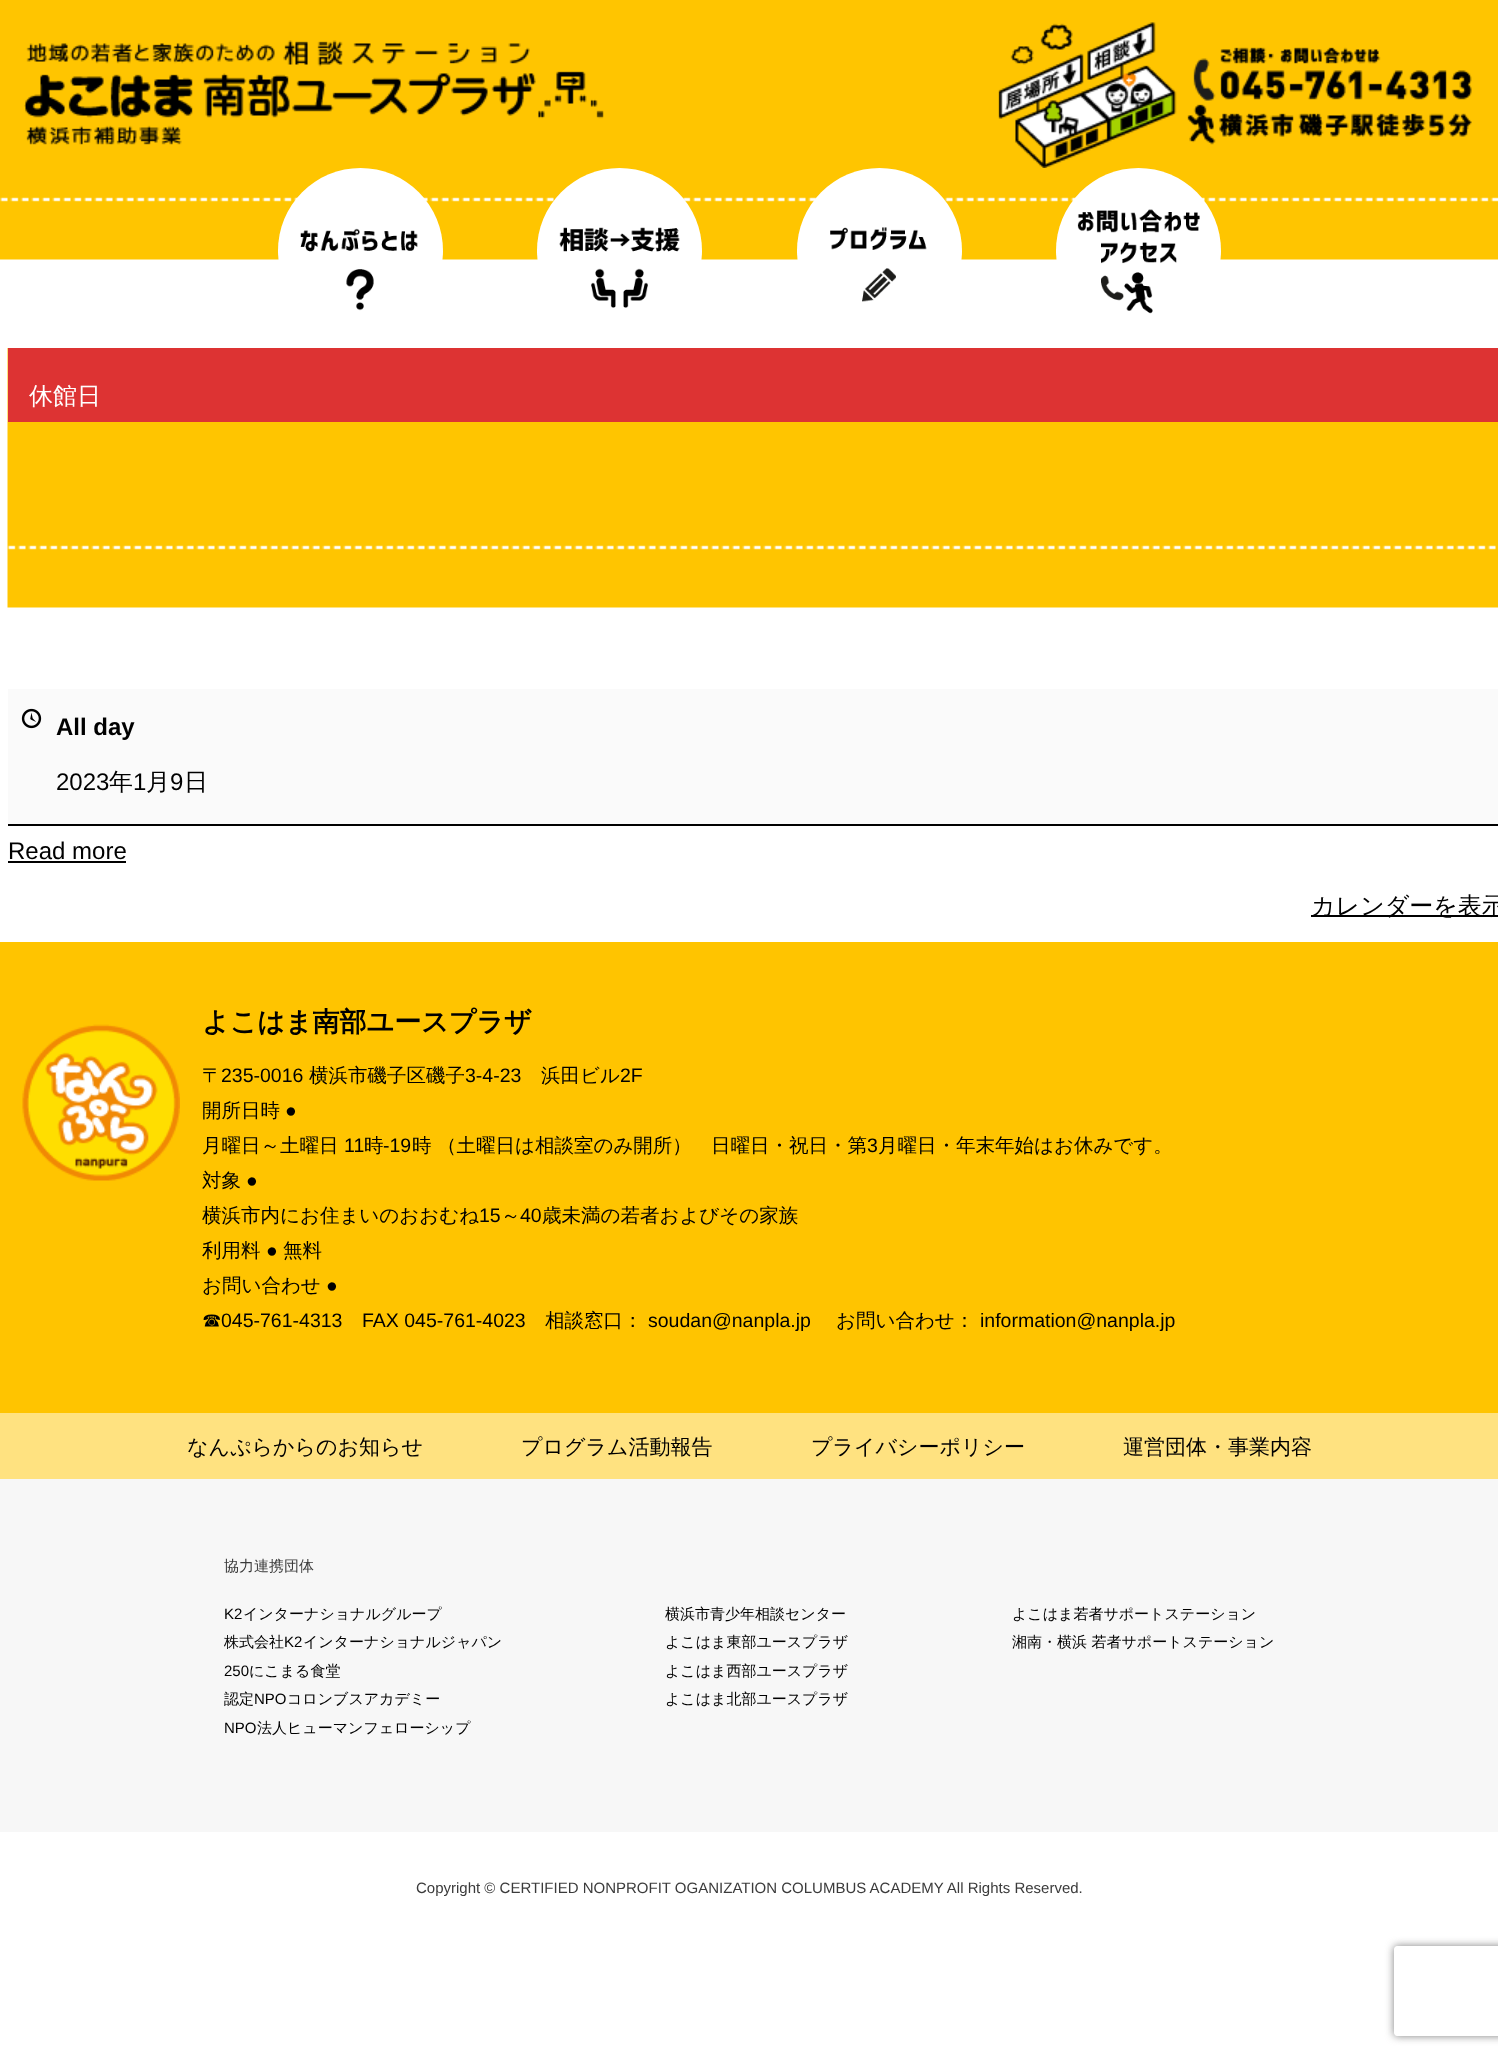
<svg xmlns="http://www.w3.org/2000/svg" width="1498" height="2056" viewBox="0 0 1498 2056">
  <style>
    .t1 { font: 500 24px WenQuanYi Zen Hei; fill: #fff; }
    .t2 { font: bold 24px Liberation Sans; fill: #000; }
    .t3 { font: 24px Liberation Sans; fill: #000; }
    .t4 { font: 500 24px WenQuanYi Zen Hei; fill: #000; }
    .t5 { font: bold 27px WenQuanYi Zen Hei; fill: #000; }
    .t6 { font: 500 19.5px WenQuanYi Zen Hei; fill: #000; }
    .t7 { font: 19.5px Liberation Sans; fill: #000; }
    .t8 { font: 500 21px WenQuanYi Zen Hei; fill: #000; }
    .t9 { font: 500 15px WenQuanYi Zen Hei; fill: #3b3b3b; }
    .t10 { font: 15px Liberation Sans; fill: #000; }
    .t11 { font: 500 15px WenQuanYi Zen Hei; fill: #000; }
    .t12 { font: 15px Liberation Sans; fill: #3b3b3b; }
  </style>
  <defs>
    <clipPath id="clip1"><path d="M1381 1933H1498V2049H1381ZM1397 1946H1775C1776.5 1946 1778 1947.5 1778 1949V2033C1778 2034.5 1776.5 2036 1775 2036H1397C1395.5 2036 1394 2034.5 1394 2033V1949C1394 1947.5 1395.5 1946 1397 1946Z" clip-rule="evenodd"/></clipPath>
  </defs>
  <rect width="100%" height="100%" fill="#fff"/>
  <image x="0" y="0" width="1498" height="260" href="images/1.png"/>
  <image x="24" y="40" width="580" height="105" href="images/2.png"/>
  <image x="998" y="22" width="474" height="146" href="images/3.png"/>
  <circle cx="360.5" cy="250.5" r="82.5" fill="#fff"/>
  <image x="300" y="228" width="118" height="83" href="images/4.png"/>
  <circle cx="619.5" cy="250.5" r="82.5" fill="#fff"/>
  <image x="559" y="227" width="121" height="81" href="images/5.png"/>
  <circle cx="879.5" cy="250.5" r="82.5" fill="#fff"/>
  <image x="830" y="227" width="97" height="75" href="images/6.png"/>
  <circle cx="1138.5" cy="250.5" r="82.5" fill="#fff"/>
  <image x="1077" y="209" width="123" height="105" href="images/7.png"/>
  <image x="7" y="348" width="1491" height="260" href="images/8.png"/>
  <rect x="8" y="348" width="1490" height="74" fill="#d33"/>
  <text x="29" y="404" class="t1">休館日</text>
  <rect x="8" y="689" width="1490" height="135" fill="#fafafa"/>
  <rect x="8" y="824" width="1490" height="2" fill="#000"/>
  <image x="21" y="708" width="21" height="21" href="images/9.png"/>
  <text x="56" y="735" class="t2">All day</text>
  <text x="56" y="790" class="t3">2023</text>
  <text x="109" y="790" class="t4">年</text>
  <text x="133" y="790" class="t3">1</text>
  <text x="146" y="790" class="t4">月</text>
  <text x="170" y="790" class="t3">9</text>
  <text x="184" y="790" class="t4">日</text>
  <text x="8" y="859" class="t3">Read more</text>
  <rect x="8" y="861" width="118" height="2" fill="#000"/>
  <rect x="1311" y="915" width="187" height="2" fill="#000"/>
  <text x="1311" y="914" class="t4">カレンダーを表示</text>
  <rect x="0" y="942" width="1498" height="471" fill="#ffc400"/>
  <image x="22" y="1024" width="158" height="157" href="images/10.png"/>
  <text x="202" y="1031" class="t5">よこはま南部ユースプラザ</text>
  <text x="202" y="1082" class="t6">〒</text>
  <text x="221" y="1082" class="t7">235-0016</text>
  <text x="309" y="1082" class="t6">横浜市磯子区磯子</text>
  <text x="465" y="1082" class="t7">3-4-23</text>
  <text x="541" y="1082" class="t6">浜田ビル</text>
  <text x="620" y="1082" class="t7">2F</text>
  <text x="202" y="1117" class="t6">開所日時</text>
  <text x="285" y="1117" class="t7">●</text>
  <text x="202" y="1152" class="t6">月曜日～土曜日</text>
  <text x="344" y="1152" class="t7">11</text>
  <text x="364" y="1152" class="t6">時</text>
  <text x="383" y="1152" class="t7">-19</text>
  <text x="412" y="1152" class="t6">時</text>
  <text x="437" y="1152" class="t6">（土曜日は相談室のみ開所）</text>
  <text x="711" y="1152" class="t6">日曜日・祝日・第</text>
  <text x="867" y="1152" class="t7">3</text>
  <text x="878" y="1152" class="t6">月曜日・年末年始はお休みです。</text>
  <text x="202" y="1187" class="t6">対象</text>
  <text x="246" y="1187" class="t7">●</text>
  <text x="202" y="1222" class="t6">横浜市内にお住まいのおおむね</text>
  <text x="479" y="1222" class="t7">15</text>
  <text x="501" y="1222" class="t6">～</text>
  <text x="520" y="1222" class="t7">40</text>
  <text x="542" y="1222" class="t6">歳未満の若者およびその家族</text>
  <text x="202" y="1257" class="t6">利用料</text>
  <text x="266" y="1257" class="t7">●</text>
  <text x="283" y="1257" class="t6">無料</text>
  <text x="202" y="1292" class="t6">お問い合わせ</text>
  <text x="326" y="1292" class="t7">●</text>
  <text x="202" y="1327" class="t6">☎︎</text>
  <text x="221" y="1327" class="t7">045-761-4313</text>
  <text x="362" y="1327" class="t7">FAX 045-761-4023</text>
  <text x="545" y="1327" class="t6">相談窓口：</text>
  <text x="648" y="1327" class="t7">soudan@nanpla.jp</text>
  <text x="836" y="1327" class="t6">お問い合わせ：</text>
  <text x="980" y="1327" class="t7">information@nanpla.jp</text>
  <rect x="0" y="1413" width="1498" height="66" fill="#ffe280"/>
  <text x="187" y="1454" class="t8">なんぷらからのお知らせ</text>
  <text x="521" y="1454" class="t8">プログラム活動報告</text>
  <text x="811" y="1454" class="t8">プライバシーポリシー</text>
  <text x="1123" y="1454" class="t8">運営団体・事業内容</text>
  <rect x="0" y="1479" width="1498" height="353" fill="#f7f7f7"/>
  <text x="224" y="1571" class="t9">協力連携団体</text>
  <text x="224" y="1619" class="t10">K2</text>
  <text x="243" y="1619" class="t11">インターナショナルグループ</text>
  <text x="224" y="1647" class="t11">株式会社</text>
  <text x="284" y="1647" class="t10">K2</text>
  <text x="303" y="1647" class="t11">インターナショナルジャパン</text>
  <text x="224" y="1676" class="t10">250</text>
  <text x="249" y="1676" class="t11">にこまる食堂</text>
  <text x="224" y="1704" class="t11">認定</text>
  <text x="254" y="1704" class="t10">NPO</text>
  <text x="287" y="1704" class="t11">コロンブスアカデミー</text>
  <text x="224" y="1733" class="t10">NPO</text>
  <text x="257" y="1733" class="t11">法人ヒューマンフェローシップ</text>
  <text x="665" y="1619" class="t11">横浜市青少年相談センター</text>
  <text x="665" y="1647" class="t11">よこはま東部ユースプラザ</text>
  <text x="665" y="1676" class="t11">よこはま西部ユースプラザ</text>
  <text x="665" y="1704" class="t11">よこはま北部ユースプラザ</text>
  <text x="1012" y="1619" class="t11">よこはま若者サポートステーション</text>
  <text x="1012" y="1647" class="t11">湘南・横浜 若者サポートステーション</text>
  <text x="416" y="1893" class="t12">Copyright © CERTIFIED NONPROFIT OGANIZATION COLUMBUS ACADEMY All Rights Reserved.</text>
  <g clip-path="url(#clip1)">
    <rect x="1394" y="1946" width="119" height="90" rx="3" fill="#808080" filter="blur(4px)"/>
  </g>
</svg>
